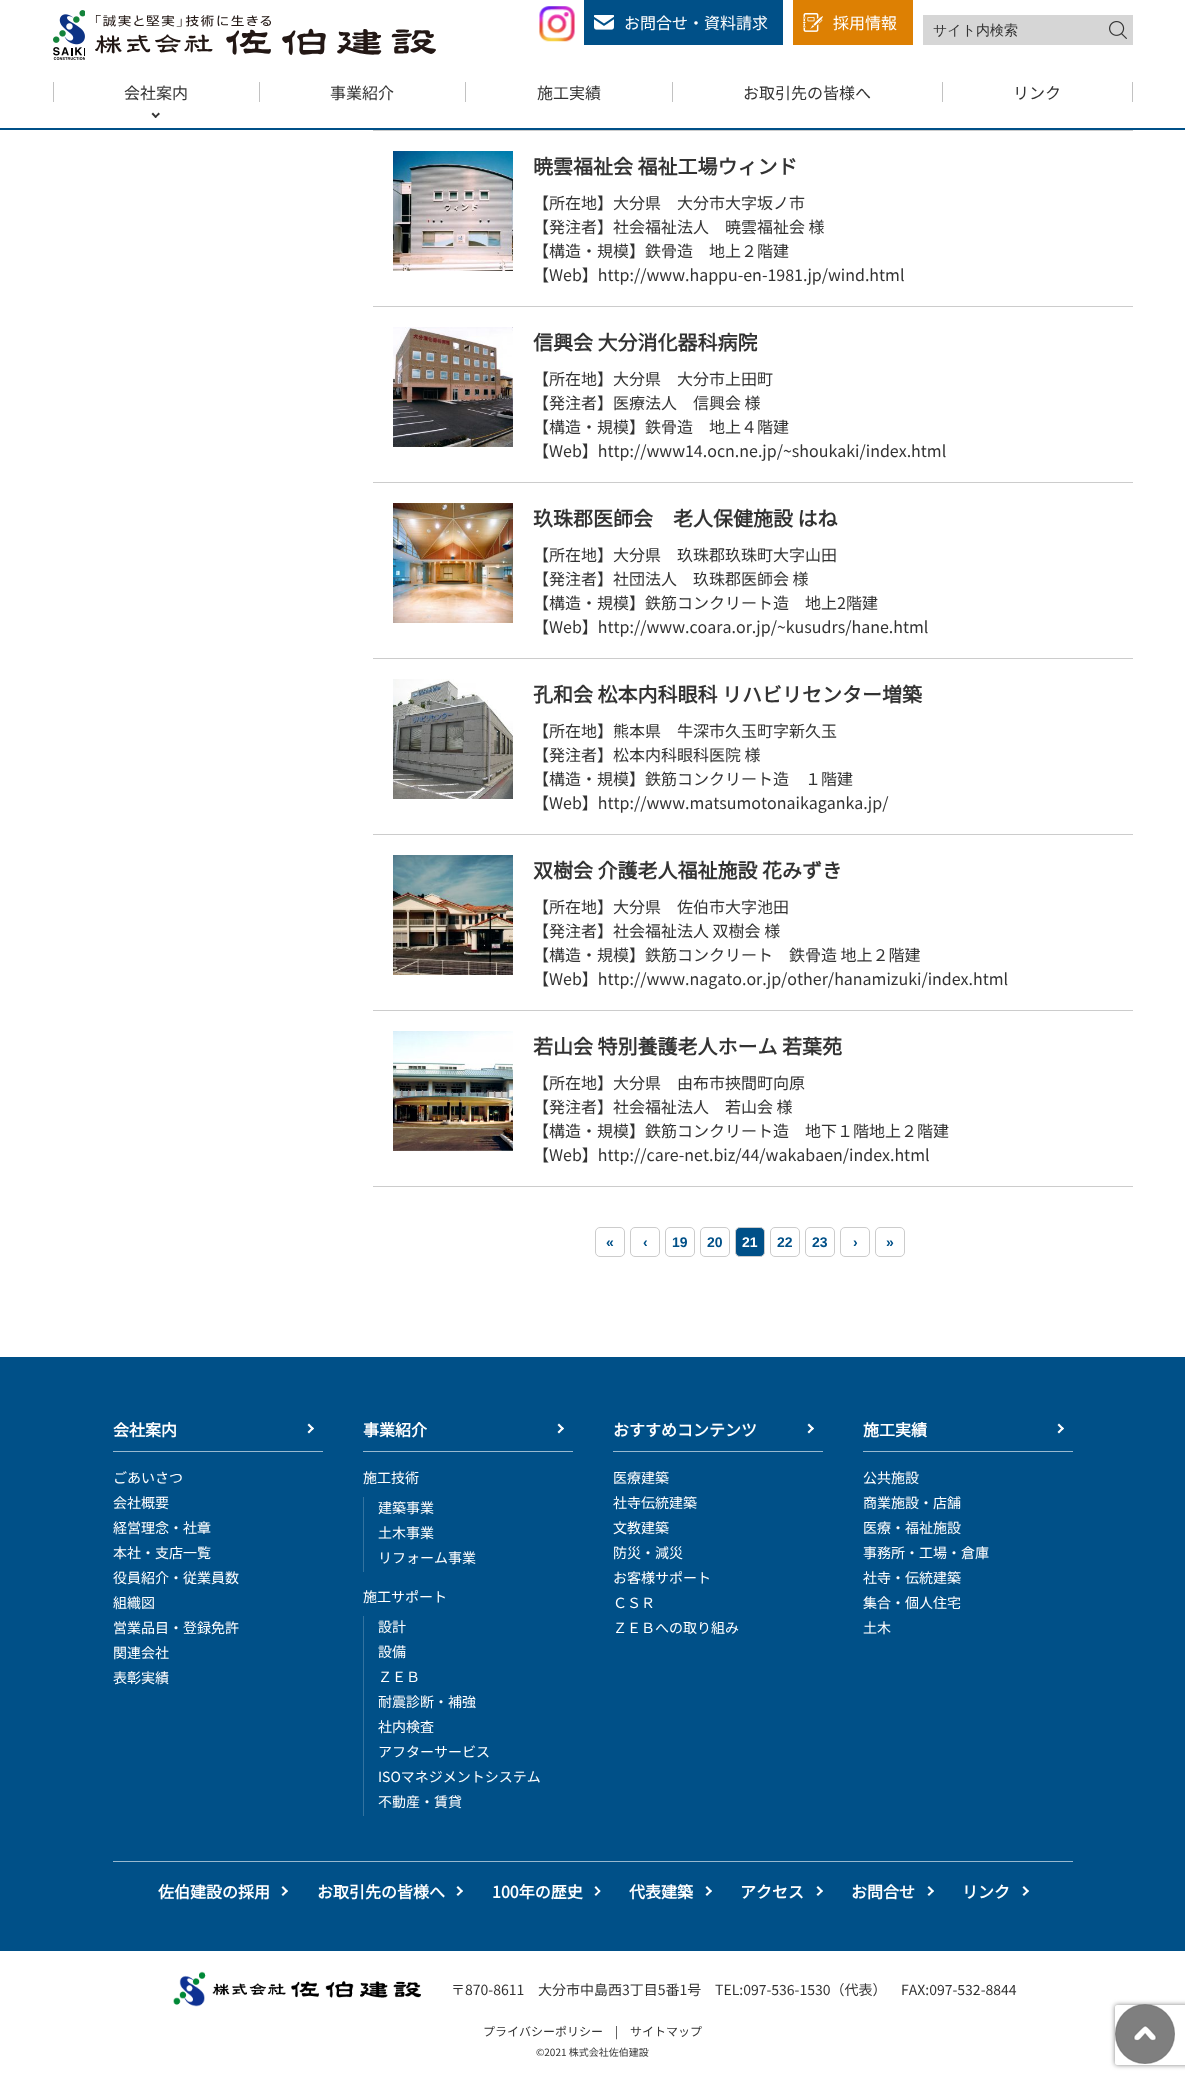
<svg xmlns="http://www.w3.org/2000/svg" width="1185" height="2079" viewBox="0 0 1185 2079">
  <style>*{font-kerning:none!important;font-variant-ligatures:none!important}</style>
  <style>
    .t1 { font: 100 16px Noto Sans JP; fill: #fff; }
    .t2 { font: 500 14px WenQuanYi Zen Hei; fill: #333; }
    .t3 { font: 100 16px Noto Sans JP; fill: #333; }
    .t4 { font: bold 20px Noto Sans JP; fill: #333; }
    .t5 { font: bold 14px Liberation Sans; fill: #005088; }
    .t6 { font: bold 14px Liberation Sans; fill: #fff; }
    .t7 { font: bold 16px Noto Sans JP; fill: #fff; }
    .t8 { font: 100 14px Noto Sans JP; fill: #fff; }
    .t9 { font: 100 14px Noto Sans JP; fill: #333; }
    .t10 { font: 100 12px Noto Sans JP; fill: #333; }
    .t11 { font: 100 10px Noto Sans JP; fill: #333; }
  </style>
  <defs>
    <clipPath id="clip1"><path d="M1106 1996H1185V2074H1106ZM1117 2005H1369C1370 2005 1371 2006 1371 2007V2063C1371 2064 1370 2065 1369 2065H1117C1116 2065 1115 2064 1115 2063V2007C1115 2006 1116 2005 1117 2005Z" clip-rule="evenodd"/></clipPath>
  </defs>
  <rect width="100%" height="100%" fill="#fff"/>
  <rect x="0" y="128" width="1185" height="2" fill="#005088"/>
  <image x="53" y="10" width="32" height="50" href="images/1.png"/>
  <image x="95" y="15" width="341" height="40" href="images/2.png"/>
  <image x="539" y="6" width="36" height="36" href="images/3.png"/>
  <rect x="584" y="0" width="199" height="45" fill="#005088"/>
  <image x="594" y="15" width="20" height="15" href="images/4.png"/>
  <text x="624" y="29" class="t1">お問合せ・資料請求</text>
  <rect x="793" y="0" width="120" height="45" fill="#dd8003"/>
  <image x="803" y="13" width="20" height="19" href="images/5.png"/>
  <text x="833" y="29" class="t1">採用情報</text>
  <rect x="923" y="15" width="210" height="30" fill="#d6d6d6"/>
  <text x="933" y="35" class="t2">サイト内検索</text>
  <image x="1109" y="21" width="18" height="18" href="images/6.png"/>
  <rect x="53" y="82" width="1" height="20" fill="#c2c2c2"/>
  <text x="124" y="99" class="t3">会社案内</text>
  <path d="M158.5 112.5L160 114L155.5 118L154.5 117Z" fill="#333"/>
  <path d="M153 112.5L157 117L155.5 118L151.5 114Z" fill="#333"/>
  <rect x="259" y="82" width="1" height="20" fill="#c2c2c2"/>
  <text x="330" y="99" class="t3">事業紹介</text>
  <rect x="465" y="82" width="1" height="20" fill="#c2c2c2"/>
  <text x="537" y="99" class="t3">施工実績</text>
  <rect x="672" y="82" width="1" height="20" fill="#c2c2c2"/>
  <text x="743" y="99" class="t3">お取引先の皆様へ</text>
  <rect x="942" y="82" width="1" height="20" fill="#c2c2c2"/>
  <text x="1013" y="99" class="t3">リンク</text>
  <rect x="1132" y="82" width="1" height="20" fill="#c2c2c2"/>
  <rect x="373" y="130" width="760" height="1" fill="#ccc"/>
  <rect x="373" y="306" width="760" height="1" fill="#ccc"/>
  <image x="393" y="151" width="120" height="120" href="images/7.png"/>
  <text x="533" y="174" class="t4">暁雲福祉会 福祉工場ウィンド</text>
  <text x="533" y="209" class="t3">【所在地】大分県　大分市大字坂ノ市</text>
  <text x="533" y="233" class="t3">【発注者】社会福祉法人　暁雲福祉会 様</text>
  <text x="533" y="257" class="t3">【構造・規模】鉄骨造　地上２階建</text>
  <text x="533" y="281" class="t3">【Web】http://www.happu-en-1981.jp/wind.html</text>
  <rect x="373" y="482" width="760" height="1" fill="#ccc"/>
  <image x="393" y="327" width="120" height="120" href="images/8.png"/>
  <text x="533" y="350" class="t4">信興会 大分消化器科病院</text>
  <text x="533" y="385" class="t3">【所在地】大分県　大分市上田町</text>
  <text x="533" y="409" class="t3">【発注者】医療法人　信興会 様</text>
  <text x="533" y="433" class="t3">【構造・規模】鉄骨造　地上４階建</text>
  <text x="533" y="457" class="t3">【Web】http://www14.ocn.ne.jp/~shoukaki/index.html</text>
  <rect x="373" y="658" width="760" height="1" fill="#ccc"/>
  <image x="393" y="503" width="120" height="120" href="images/9.png"/>
  <text x="533" y="526" class="t4">玖珠郡医師会　老人保健施設 はね</text>
  <text x="533" y="561" class="t3">【所在地】大分県　玖珠郡玖珠町大字山田</text>
  <text x="533" y="585" class="t3">【発注者】社団法人　玖珠郡医師会 様</text>
  <text x="533" y="609" class="t3">【構造・規模】鉄筋コンクリート造　地上2階建</text>
  <text x="533" y="633" class="t3">【Web】http://www.coara.or.jp/~kusudrs/hane.html</text>
  <rect x="373" y="834" width="760" height="1" fill="#ccc"/>
  <image x="393" y="679" width="120" height="120" href="images/10.png"/>
  <text x="533" y="702" class="t4">孔和会 松本内科眼科 リハビリセンター増築</text>
  <text x="533" y="737" class="t3">【所在地】熊本県　牛深市久玉町字新久玉</text>
  <text x="533" y="761" class="t3">【発注者】松本内科眼科医院 様</text>
  <text x="533" y="785" class="t3">【構造・規模】鉄筋コンクリート造　１階建</text>
  <text x="533" y="809" class="t3">【Web】http://www.matsumotonaikaganka.jp/</text>
  <rect x="373" y="1010" width="760" height="1" fill="#ccc"/>
  <image x="393" y="855" width="120" height="120" href="images/11.png"/>
  <text x="533" y="878" class="t4">双樹会 介護老人福祉施設 花みずき</text>
  <text x="533" y="913" class="t3">【所在地】大分県　佐伯市大字池田</text>
  <text x="533" y="937" class="t3">【発注者】社会福祉法人 双樹会 様</text>
  <text x="533" y="961" class="t3">【構造・規模】鉄筋コンクリート　鉄骨造 地上２階建</text>
  <text x="533" y="985" class="t3">【Web】http://www.nagato.or.jp/other/hanamizuki/index.html</text>
  <rect x="373" y="1186" width="760" height="1" fill="#ccc"/>
  <image x="393" y="1031" width="120" height="120" href="images/12.png"/>
  <text x="533" y="1054" class="t4">若山会 特別養護老人ホーム 若葉苑</text>
  <text x="533" y="1089" class="t3">【所在地】大分県　由布市挾間町向原</text>
  <text x="533" y="1113" class="t3">【発注者】社会福祉法人　若山会 様</text>
  <text x="533" y="1137" class="t3">【構造・規模】鉄筋コンクリート造　地下１階地上２階建</text>
  <text x="533" y="1161" class="t3">【Web】http://care-net.biz/44/wakabaen/index.html</text>
  <rect x="595.5" y="1227.5" width="29" height="29" rx="4.5" fill="none" stroke="#ccc"/>
  <text x="606" y="1247" class="t5">«</text>
  <rect x="630.5" y="1227.5" width="29" height="29" rx="4.5" fill="none" stroke="#ccc"/>
  <text x="643" y="1247" class="t5">‹</text>
  <rect x="665.5" y="1227.5" width="29" height="29" rx="4.5" fill="none" stroke="#ccc"/>
  <text x="672" y="1247" class="t5">19</text>
  <rect x="700.5" y="1227.5" width="29" height="29" rx="4.5" fill="none" stroke="#ccc"/>
  <text x="707" y="1247" class="t5">20</text>
  <rect x="735.5" y="1227.5" width="29" height="29" rx="4.5" fill="#005088" stroke="#ccc"/>
  <text x="742" y="1247" class="t6">21</text>
  <rect x="770.5" y="1227.5" width="29" height="29" rx="4.5" fill="none" stroke="#ccc"/>
  <text x="777" y="1247" class="t5">22</text>
  <rect x="805.5" y="1227.5" width="29" height="29" rx="4.5" fill="none" stroke="#ccc"/>
  <text x="812" y="1247" class="t5">23</text>
  <rect x="840.5" y="1227.5" width="29" height="29" rx="4.5" fill="none" stroke="#ccc"/>
  <text x="853" y="1247" class="t5">›</text>
  <rect x="875.5" y="1227.5" width="29" height="29" rx="4.5" fill="none" stroke="#ccc"/>
  <text x="886" y="1247" class="t5">»</text>
  <rect x="0" y="1357" width="1185" height="594" fill="#005088"/>
  <rect x="113" y="1451" width="210" height="1" fill="#99b9cf"/>
  <text x="113" y="1436" class="t7">会社案内</text>
  <path d="M307.5 1425L309 1423.5L314 1428.5L312.5 1430Z" fill="#fff"/>
  <path d="M307.5 1432L312.5 1427L314 1428.5L309 1433.5Z" fill="#fff"/>
  <text x="113" y="1483" class="t8">ごあいさつ</text>
  <text x="113" y="1508" class="t8">会社概要</text>
  <text x="113" y="1533" class="t8">経営理念・社章</text>
  <text x="113" y="1558" class="t8">本社・支店一覧</text>
  <text x="113" y="1583" class="t8">役員紹介・従業員数</text>
  <text x="113" y="1608" class="t8">組織図</text>
  <text x="113" y="1633" class="t8">営業品目・登録免許</text>
  <text x="113" y="1658" class="t8">関連会社</text>
  <text x="113" y="1683" class="t8">表彰実績</text>
  <rect x="363" y="1451" width="210" height="1" fill="#99b9cf"/>
  <text x="363" y="1436" class="t7">事業紹介</text>
  <path d="M557.5 1425L559 1423.5L564 1428.5L562.5 1430Z" fill="#fff"/>
  <path d="M557.5 1432L562.5 1427L564 1428.5L559 1433.5Z" fill="#fff"/>
  <text x="363" y="1483" class="t8">施工技術</text>
  <rect x="363" y="1497" width="1" height="75" fill="#3373a0"/>
  <text x="378" y="1513" class="t8">建築事業</text>
  <text x="378" y="1538" class="t8">土木事業</text>
  <text x="378" y="1563" class="t8">リフォーム事業</text>
  <text x="363" y="1602" class="t8">施工サポート</text>
  <rect x="363" y="1616" width="1" height="200" fill="#3373a0"/>
  <text x="378" y="1632" class="t8">設計</text>
  <text x="378" y="1657" class="t8">設備</text>
  <text x="378" y="1682" class="t8">ＺＥＢ</text>
  <text x="378" y="1707" class="t8">耐震診断・補強</text>
  <text x="378" y="1732" class="t8">社内検査</text>
  <text x="378" y="1757" class="t8">アフターサービス</text>
  <text x="378" y="1782" class="t8">ISOマネジメントシステム</text>
  <text x="378" y="1807" class="t8">不動産・賃貸</text>
  <rect x="613" y="1451" width="210" height="1" fill="#99b9cf"/>
  <text x="613" y="1436" class="t7">おすすめコンテンツ</text>
  <path d="M807.5 1425L809 1423.5L814 1428.5L812.5 1430Z" fill="#fff"/>
  <path d="M807.5 1432L812.5 1427L814 1428.5L809 1433.5Z" fill="#fff"/>
  <text x="613" y="1483" class="t8">医療建築</text>
  <text x="613" y="1508" class="t8">社寺伝統建築</text>
  <text x="613" y="1533" class="t8">文教建築</text>
  <text x="613" y="1558" class="t8">防災・減災</text>
  <text x="613" y="1583" class="t8">お客様サポート</text>
  <text x="613" y="1608" class="t8">ＣＳＲ</text>
  <text x="613" y="1633" class="t8">ＺＥＢへの取り組み</text>
  <rect x="863" y="1451" width="210" height="1" fill="#99b9cf"/>
  <text x="863" y="1436" class="t7">施工実績</text>
  <path d="M1057.5 1425L1059 1423.5L1064 1428.5L1062.5 1430Z" fill="#fff"/>
  <path d="M1057.5 1432L1062.5 1427L1064 1428.5L1059 1433.5Z" fill="#fff"/>
  <text x="863" y="1483" class="t8">公共施設</text>
  <text x="863" y="1508" class="t8">商業施設・店舗</text>
  <text x="863" y="1533" class="t8">医療・福祉施設</text>
  <text x="863" y="1558" class="t8">事務所・工場・倉庫</text>
  <text x="863" y="1583" class="t8">社寺・伝統建築</text>
  <text x="863" y="1608" class="t8">集合・個人住宅</text>
  <text x="863" y="1633" class="t8">土木</text>
  <rect x="113" y="1861" width="960" height="1" fill="#99b9cf"/>
  <text x="158" y="1898" class="t7">佐伯建設の採用</text>
  <path d="M281.5 1887.5L283 1886L288 1891L286.5 1892.5Z" fill="#fff"/>
  <path d="M281.5 1894.5L286.5 1890L288 1891L283 1896Z" fill="#fff"/>
  <text x="317" y="1898" class="t7">お取引先の皆様へ</text>
  <path d="M456.5 1887.5L458 1886L463 1891L461.5 1892.5Z" fill="#fff"/>
  <path d="M456.5 1894.5L461.5 1890L463 1891L458 1896Z" fill="#fff"/>
  <text x="492" y="1898" class="t7">100年の歴史</text>
  <path d="M594.5 1887.5L596 1886L600.5 1891L599.5 1892.5Z" fill="#fff"/>
  <path d="M594.5 1894.5L599.5 1890L600.5 1891L596 1896Z" fill="#fff"/>
  <text x="629" y="1898" class="t7">代表建築</text>
  <path d="M705.5 1887.5L707 1886L712 1891L710.5 1892.5Z" fill="#fff"/>
  <path d="M705.5 1894.5L710.5 1890L712 1891L707 1896Z" fill="#fff"/>
  <text x="740" y="1898" class="t7">アクセス</text>
  <path d="M816.5 1887.5L818 1886L823 1891L821.5 1892.5Z" fill="#fff"/>
  <path d="M816.5 1894.5L821.5 1890L823 1891L818 1896Z" fill="#fff"/>
  <text x="851" y="1898" class="t7">お問合せ</text>
  <path d="M927.5 1887.5L929 1886L934 1891L932.5 1892.5Z" fill="#fff"/>
  <path d="M927.5 1894.5L932.5 1890L934 1891L929 1896Z" fill="#fff"/>
  <text x="962" y="1898" class="t7">リンク</text>
  <path d="M1022.5 1887.5L1024 1886L1029 1891L1027.5 1892.5Z" fill="#fff"/>
  <path d="M1022.5 1894.5L1027.5 1890L1029 1891L1024 1896Z" fill="#fff"/>
  <image x="173" y="1971" width="33" height="36" href="images/13.png"/>
  <image x="212" y="1981" width="209" height="17" href="images/14.png"/>
  <text x="451" y="1995" class="t9">〒870-8611</text>
  <text x="538" y="1995" class="t9">大分市中島西3丁目5番1号</text>
  <text x="715" y="1995" class="t9">TEL:097-536-1530（代表）</text>
  <text x="901" y="1995" class="t9">FAX:097-532-8844</text>
  <text x="483" y="2036" class="t10">プライバシーポリシー</text>
  <text x="615" y="2036" class="t10">|</text>
  <text x="630" y="2036" class="t10">サイトマップ</text>
  <text x="536" y="2056" class="t11">©2021 株式会社佐伯建設</text>
  <image x="1115" y="2004" width="60" height="60" href="images/15.png"/>
  <g clip-path="url(#clip1)">
    <rect x="1115" y="2005" width="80" height="60" rx="2" fill="#808080" filter="blur(2.5px)"/>
  </g>
</svg>
